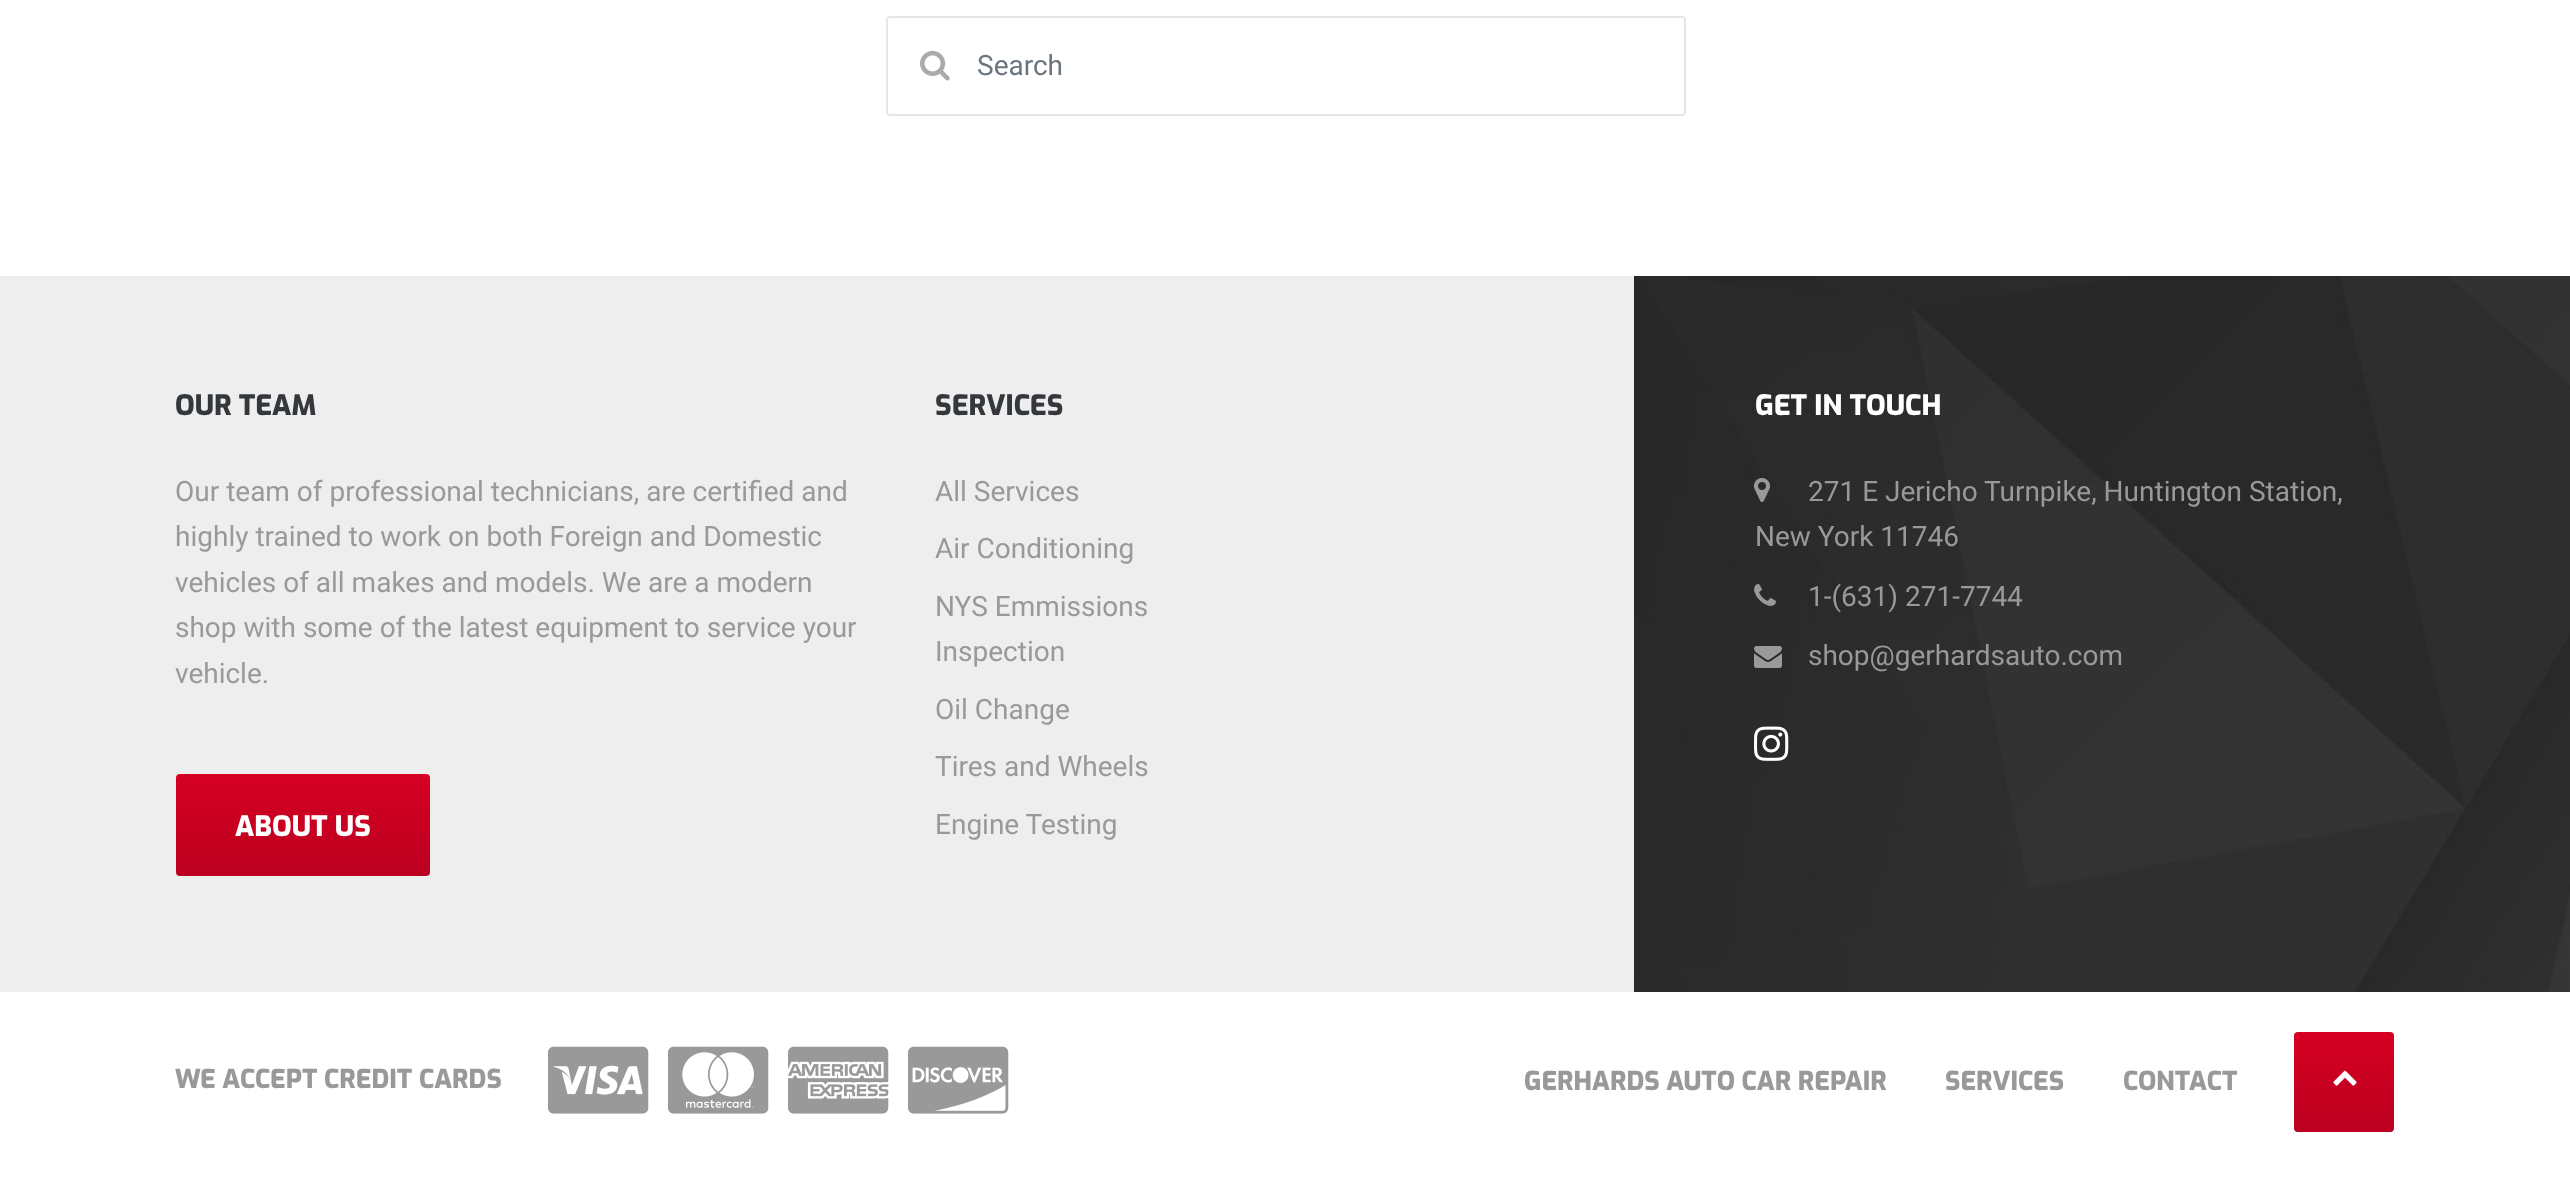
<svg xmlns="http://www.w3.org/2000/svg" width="2570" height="1202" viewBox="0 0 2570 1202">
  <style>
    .t1 { font: 28px Roboto; fill: #6c757d; }
    .t2 { font: 800 28px Exo; fill: #34373b; }
    .t3 { font: 28px Roboto; fill: #999; }
    .t4 { font: 800 28px Exo; fill: #fff; }
    .t5 { font: 800 26px Exo; fill: #999; }
  </style>
  <defs>
    <linearGradient id="g1" gradientUnits="userSpaceOnUse" x1="303" y1="876" x2="303" y2="774"><stop offset="0" stop-color="#bc001f"/><stop offset="1" stop-color="#d60023"/></linearGradient>
    <linearGradient id="g2" gradientUnits="userSpaceOnUse" x1="2344" y1="1132" x2="2344" y2="1032"><stop offset="0" stop-color="#bc001f"/><stop offset="1" stop-color="#d60023"/></linearGradient>
  </defs>
  <rect width="100%" height="100%" fill="#fff"/>
  <rect x="887" y="17" width="798" height="98" rx="3" fill="none" stroke="#e6e6e6" stroke-width="2"/>
  <image x="920" y="50" width="30" height="31" href="images/1.png"/>
  <text x="977" y="75" class="t1">Search</text>
  <rect x="0" y="276" width="1634" height="716" fill="#eee"/>
  <text x="175" y="415" class="t2">OUR TEAM</text>
  <text x="175" y="501" class="t3">Our team of professional technicians, are certified and</text>
  <text x="175" y="546" class="t3">highly trained to work on both Foreign and Domestic</text>
  <text x="175" y="592" class="t3">vehicles of all makes and models. We are a modern</text>
  <text x="175" y="637" class="t3">shop with some of the latest equipment to service your</text>
  <text x="175" y="683" class="t3">vehicle.</text>
  <rect x="176" y="774" width="254" height="102" rx="4" fill="url(#g1)"/>
  <text x="235" y="836" class="t4">ABOUT US</text>
  <text x="935" y="415" class="t2">SERVICES</text>
  <text x="935" y="501" class="t3">All Services</text>
  <text x="935" y="558" class="t3">Air Conditioning</text>
  <text x="935" y="616" class="t3">NYS Emmissions</text>
  <text x="935" y="661" class="t3">Inspection</text>
  <text x="935" y="719" class="t3">Oil Change</text>
  <text x="935" y="776" class="t3">Tires and Wheels</text>
  <text x="935" y="834" class="t3">Engine Testing</text>
  <image x="1634" y="276" width="936" height="716" href="images/2.png"/>
  <text x="1755" y="415" class="t4">GET IN TOUCH</text>
  <image x="1754" y="478" width="16" height="24" href="images/3.png"/>
  <text x="1808" y="501" class="t3">271 E Jericho Turnpike, Huntington Station,</text>
  <text x="1755" y="546" class="t3">New York 11746</text>
  <image x="1754" y="584" width="22" height="22" href="images/4.png"/>
  <text x="1808" y="606" class="t3">1-(631) 271-7744</text>
  <image x="1754" y="646" width="28" height="22" href="images/5.png"/>
  <text x="1808" y="665" class="t3">shop@gerhardsauto.com</text>
  <image x="1754" y="726" width="35" height="35" href="images/6.png"/>
  <text x="175" y="1088" class="t5">WE ACCEPT CREDIT CARDS</text>
  <image x="548" y="1046" width="101" height="68" href="images/7.png"/>
  <image x="668" y="1046" width="101" height="68" href="images/8.png"/>
  <image x="788" y="1046" width="101" height="68" href="images/9.png"/>
  <image x="908" y="1046" width="101" height="68" href="images/10.png"/>
  <text x="1524" y="1090" class="t5">GERHARDS AUTO CAR REPAIR</text>
  <text x="1945" y="1090" class="t5">SERVICES</text>
  <text x="2123" y="1090" class="t5">CONTACT</text>
  <rect x="2294" y="1032" width="100" height="100" rx="4" fill="url(#g2)"/>
  <image x="2333" y="1070" width="24" height="16" href="images/11.png"/>
</svg>
